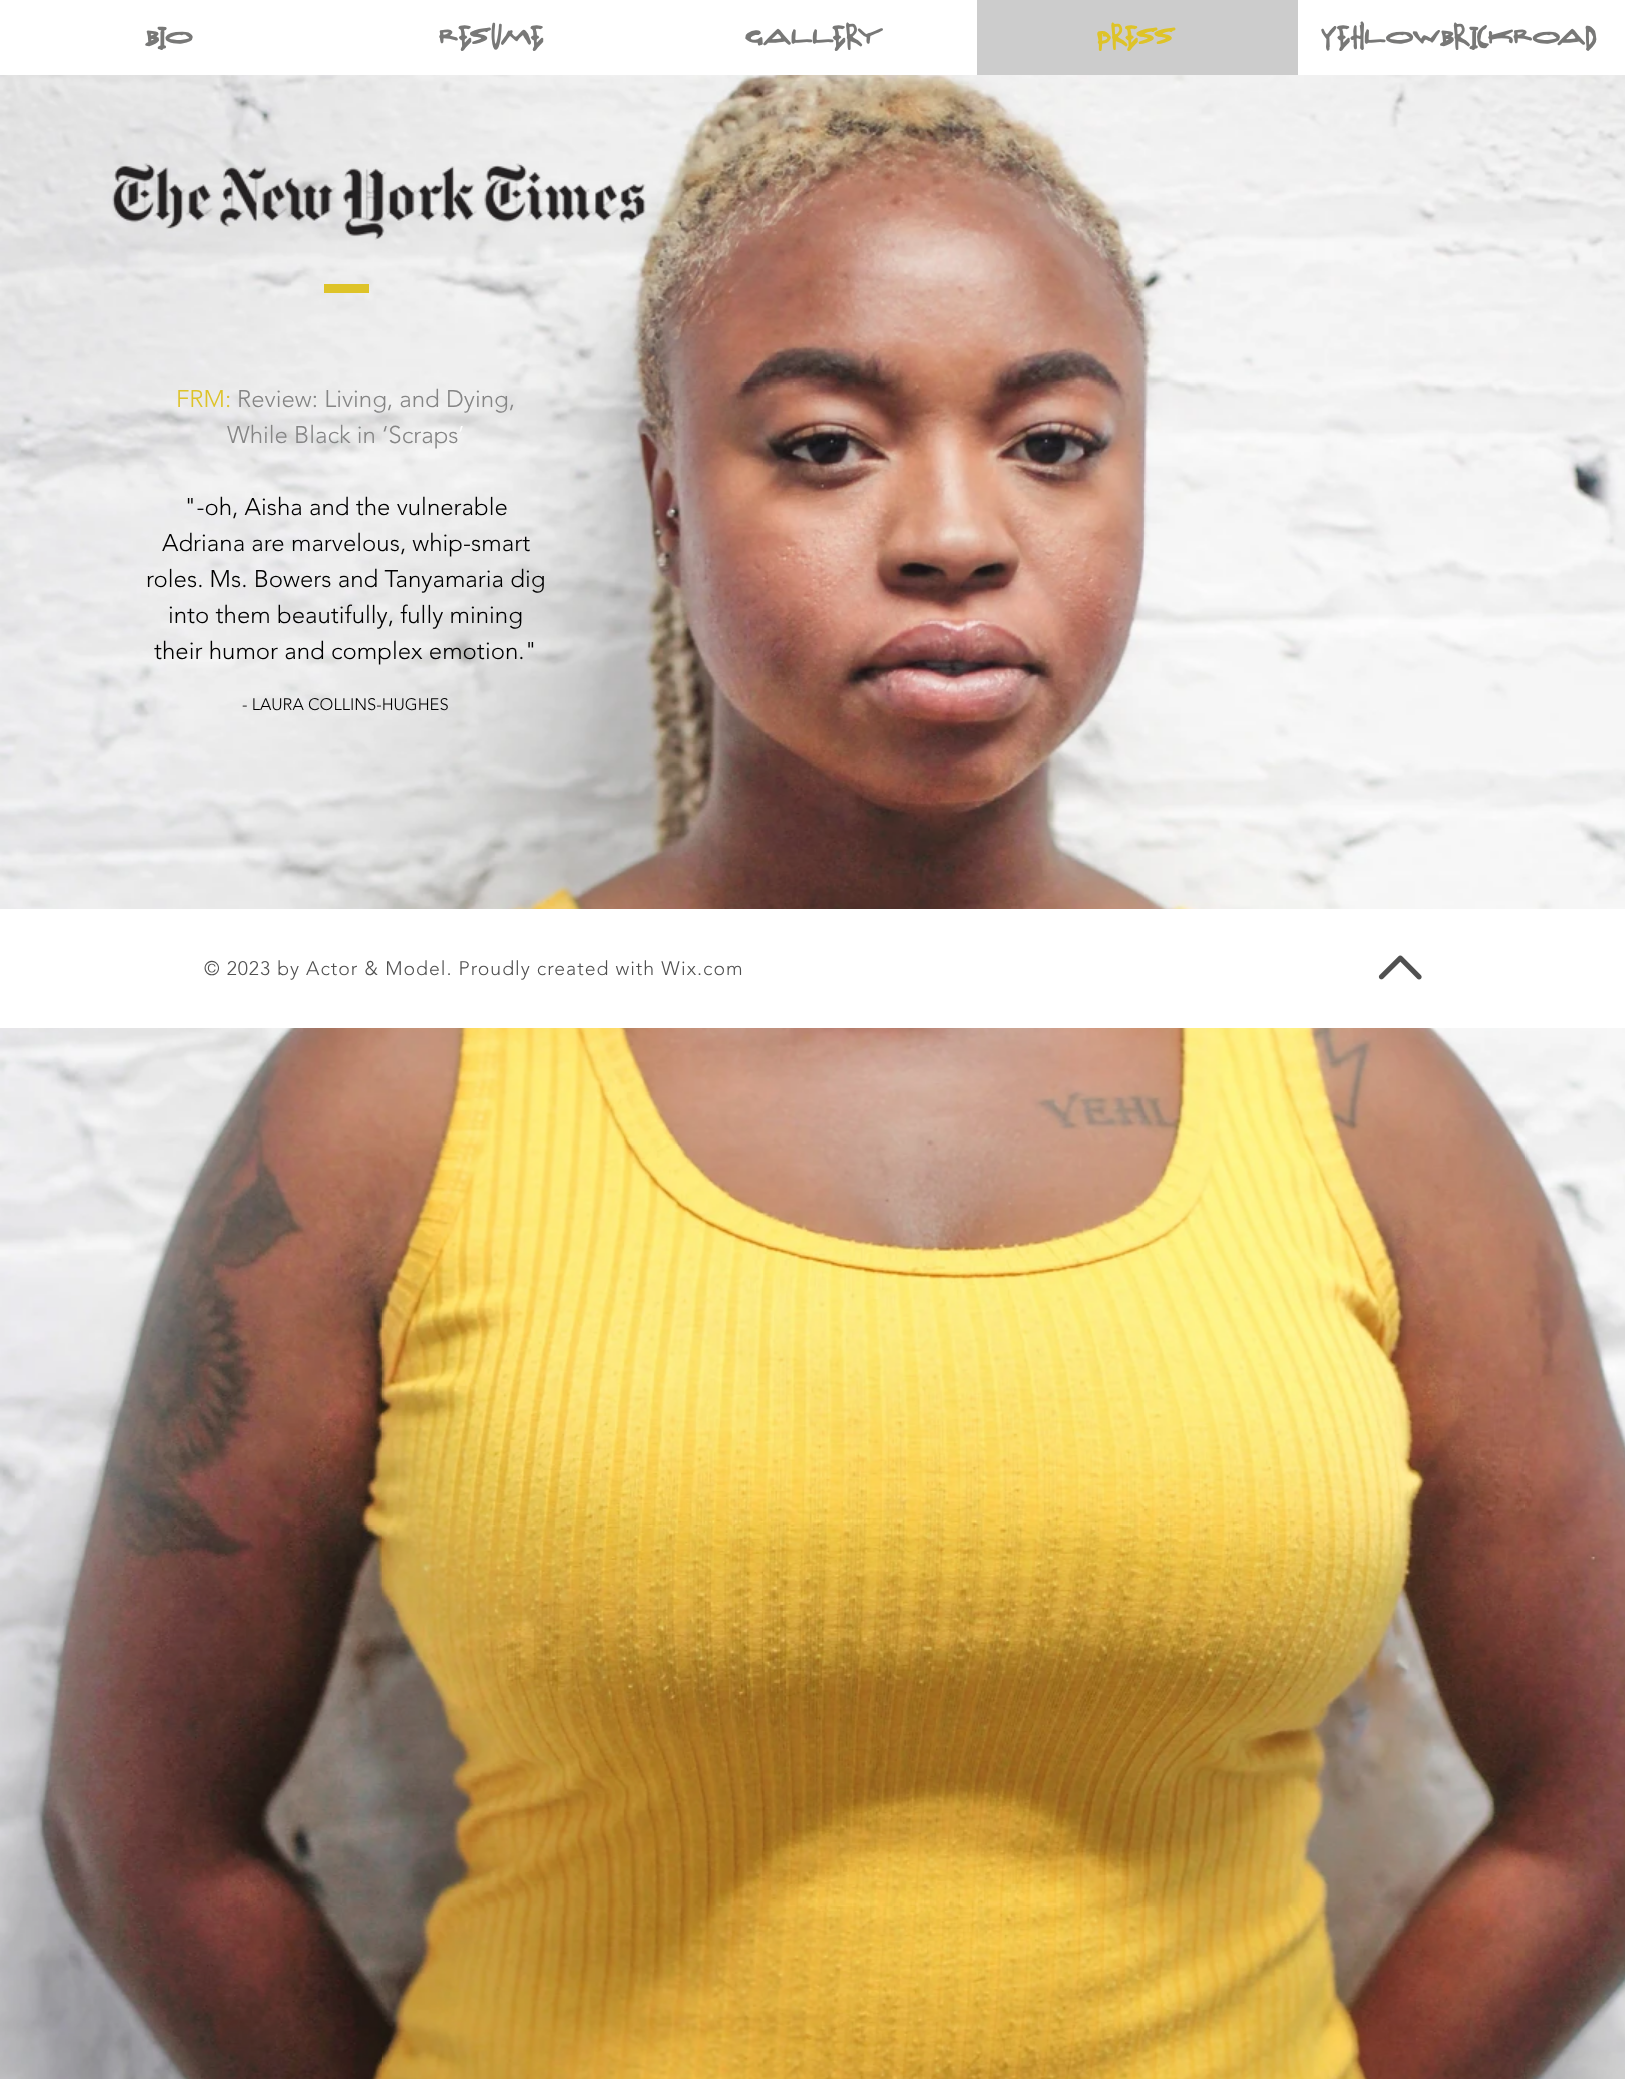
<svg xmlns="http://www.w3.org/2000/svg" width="1625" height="2079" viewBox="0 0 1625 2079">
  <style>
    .t1 { font: 25.5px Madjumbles; fill: #787877; }
    .t2 { font: 25.5px Madjumbles; fill: #dec328; }
    .t3 { font: 300 24px 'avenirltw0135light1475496'; fill: #dec328; }
    .t4 { font: 300 24px 'avenirltw0135light1475496'; fill: #858585; }
    .t5 { font: 300 24px 'avenirltw0135light1475496'; fill: #fff; }
    .t6 { font: 300 24px 'avenirltw0135light1475496'; fill: #000; }
    .t7 { font: 300 16.5px 'avenirltw0135light1475496'; fill: #000; }
    .t8 { font: 300 19.5px 'avenirltw0135light1475496'; letter-spacing: 0.98px; fill: #505050; }
  </style>
  <rect width="100%" height="100%" fill="#fff"/>
  <text x="145" y="47" class="t1">Bio</text>
  <text x="439" y="47" class="t1">Resume</text>
  <text x="745" y="47" class="t1">Gallery</text>
  <rect x="977" y="0" width="321" height="75" fill="#ccc"/>
  <text x="1097" y="47" class="t2">Press</text>
  <text x="1321" y="47" class="t1">YehlowBrickRoad</text>
  <image x="0" y="75" width="1625" height="2004" href="images/3.png"/>
  <image x="112" y="163" width="534" height="77" href="images/1.png"/>
  <rect x="324" y="284" width="45" height="9" fill="#dec328"/>
  <text x="176" y="407" class="t3">FRM:</text>
  <text x="237" y="407" class="t4">Review: Living, and Dying,</text>
  <text x="227" y="443" class="t4">While Black in ‘Scraps</text>
  <text x="458" y="443" class="t5">’</text>
  <text x="184" y="515" class="t6">"-oh, Aisha and the vulnerable</text>
  <text x="162" y="551" class="t6">Adriana are marvelous, whip-smart</text>
  <text x="146" y="587" class="t6">roles. Ms. Bowers and Tanyamaria dig</text>
  <text x="168" y="623" class="t6">into them beautifully, fully mining</text>
  <text x="154" y="659" class="t6">their humor and complex emotion."</text>
  <text x="242" y="710" class="t7">- LAURA COLLINS-HUGHES</text>
  <rect x="0" y="909" width="1625" height="119" fill="#fff"/>
  <text x="204" y="975" class="t8">© 2023 by Actor &amp; Model. Proudly created with Wix.com</text>
  <image x="1378" y="955" width="44" height="25" href="images/2.png"/>
</svg>
